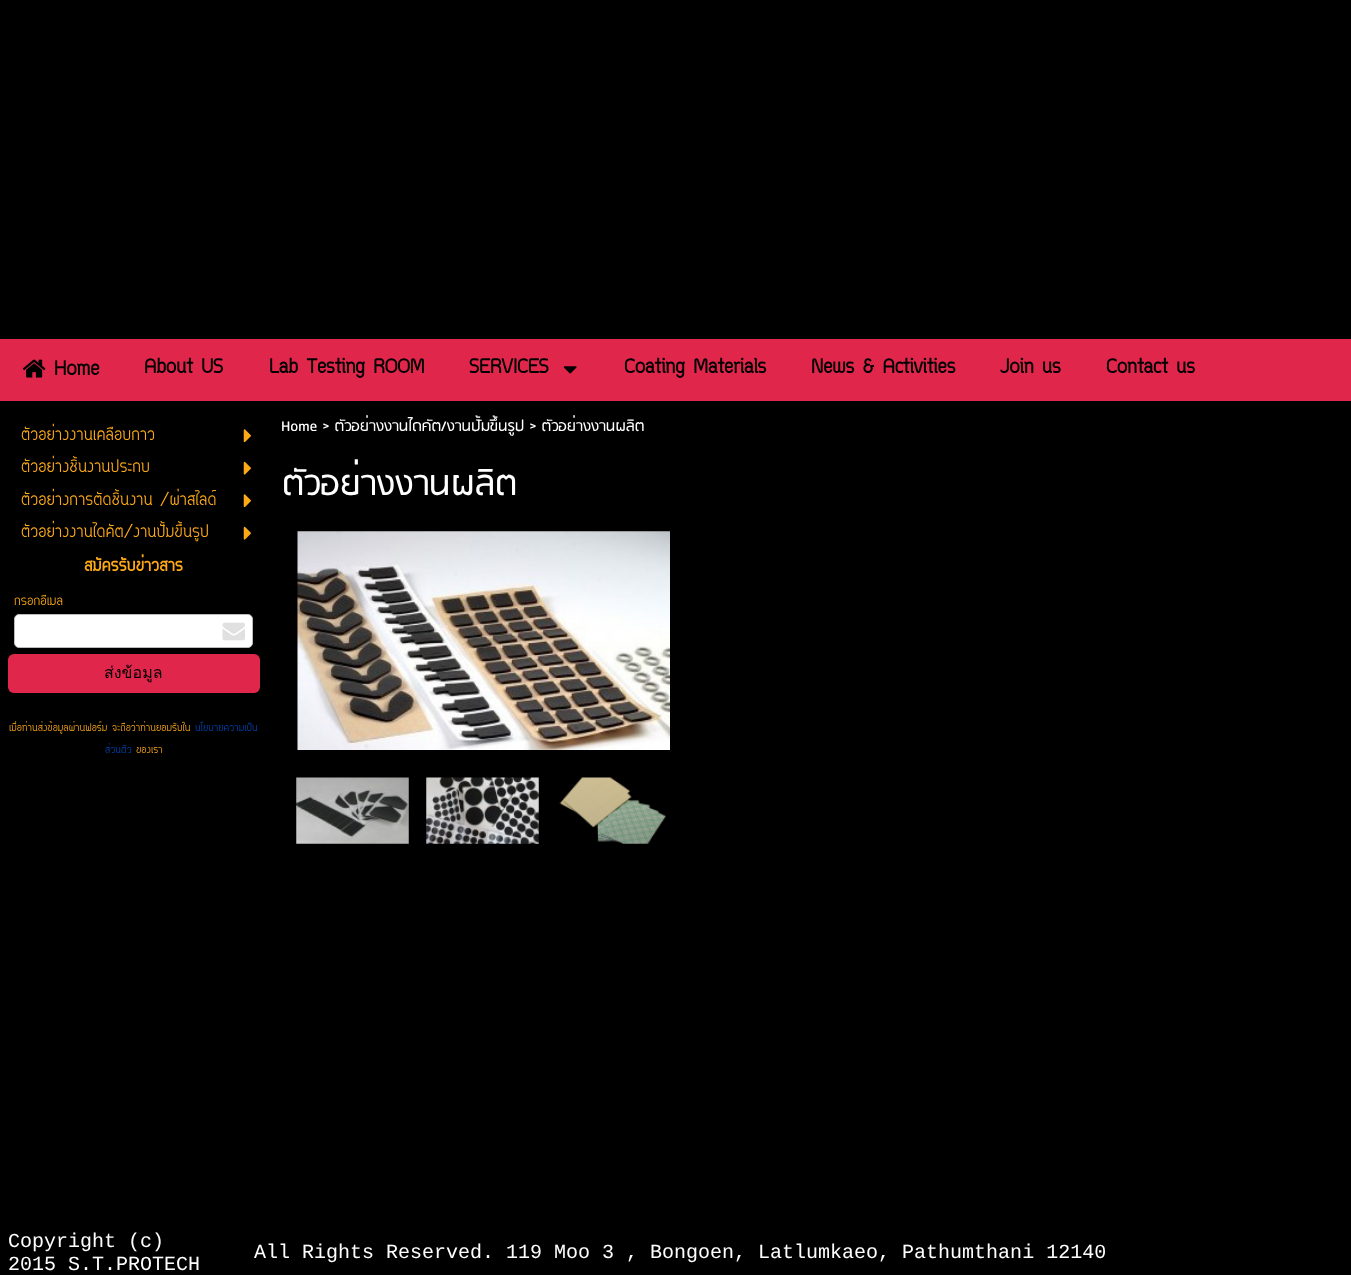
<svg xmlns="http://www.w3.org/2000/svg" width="1351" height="1275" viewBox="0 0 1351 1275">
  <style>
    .t1 { font: bold 25px Circular; fill: #000; }
    .t2 { font: 22.5px Circular; fill: #fda918; }
    .t3 { font: bold 22.5px Circular; fill: #fda918; }
    .t4 { font: 17.5px Circular; fill: #fda918; }
    .t5 { font: 16px Loma; fill: #000; }
    .t6 { font: 14px Circular; fill: #fda918; }
    .t7 { font: 14px Circular; fill: #0044b0; }
    .t8 { font: 17.5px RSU; fill: #fff; }
    .t9 { font: 40px RSU; fill: #fff; }
    .t10 { font: 20px Liberation Mono; fill: #fff; }
  </style>
  <rect width="100%" height="100%" fill="#000"/>
  <rect x="0" y="339" width="1351" height="62" fill="#e0264b"/>
  <image x="22" y="359" width="24" height="19" href="images/1.png"/>
  <text x="54" y="375" class="t1">Home</text>
  <text x="144" y="373" class="t1">About US</text>
  <text x="269" y="373" class="t1">Lab Testing ROOM</text>
  <text x="469" y="373" class="t1">SERVICES</text>
  <image x="563" y="366" width="14" height="8" href="images/2.png"/>
  <text x="624" y="373" class="t1">Coating Materials</text>
  <text x="811" y="373" class="t1">News &amp; Activities</text>
  <text x="1000" y="373" class="t1">Join us</text>
  <text x="1106" y="373" class="t1">Contact us</text>
  <text x="21" y="440" class="t2">ตัวอย่างงานเคลือบกาว</text>
  <image x="243" y="429" width="8" height="14" href="images/3.png"/>
  <text x="21" y="472" class="t2">ตัวอย่างชิ้นงานประกบ</text>
  <image x="243" y="461" width="8" height="14" href="images/4.png"/>
  <text x="21" y="505" class="t2">ตัวอย่างการตัดชิ้นงาน /ผ่าสไลด์</text>
  <image x="243" y="494" width="8" height="14" href="images/3.png"/>
  <text x="21" y="537" class="t2">ตัวอย่างงานไดคัต/งานปั้มขึ้นรูป</text>
  <image x="243" y="526" width="8" height="14" href="images/4.png"/>
  <text x="84" y="571" class="t3">สมัครรับข่าวสาร</text>
  <text x="14" y="605" class="t4">กรอกอีเมล</text>
  <rect x="14.5" y="614.5" width="238" height="33" rx="4.5" fill="#fff" stroke="#bbb"/>
  <image x="222" y="622" width="23" height="19" href="images/5.png"/>
  <rect x="8" y="654" width="252" height="39" rx="6" fill="#e0264b"/>
  <text x="104" y="678" class="t5">ส่งข้อมูล</text>
  <text x="9" y="731" class="t6">เมื่อท่านส่งข้อมูลผ่านฟอร์ม จะถือว่าท่านยอมรับใน</text>
  <text x="195" y="731" class="t7">นโยบายความเป็น</text>
  <text x="105" y="753" class="t7">ส่วนตัว</text>
  <text x="136" y="753" class="t6">ของเรา</text>
  <text x="281" y="431" class="t8">Home &gt; ตัวอย่างงานไดคัต/งานปั้มขึ้นรูป &gt; ตัวอย่างงานผลิต</text>
  <text x="282" y="495" class="t9">ตัวอย่างงานผลิต</text>
  <image x="297" y="531" width="373" height="219" href="images/6.png"/>
  <image x="296" y="777" width="113" height="67" href="images/7.png"/>
  <image x="426" y="777" width="113" height="67" href="images/8.png"/>
  <image x="559" y="777" width="107" height="67" href="images/9.png"/>
  <text x="8" y="1247" class="t10">Copyright (c)</text>
  <text x="8" y="1270" class="t10">2015 S.T.PROTECH</text>
  <text x="254" y="1258" class="t10">All Rights Reserved. 119 Moo 3 , Bongoen, Latlumkaeo, Pathumthani 12140</text>
</svg>
